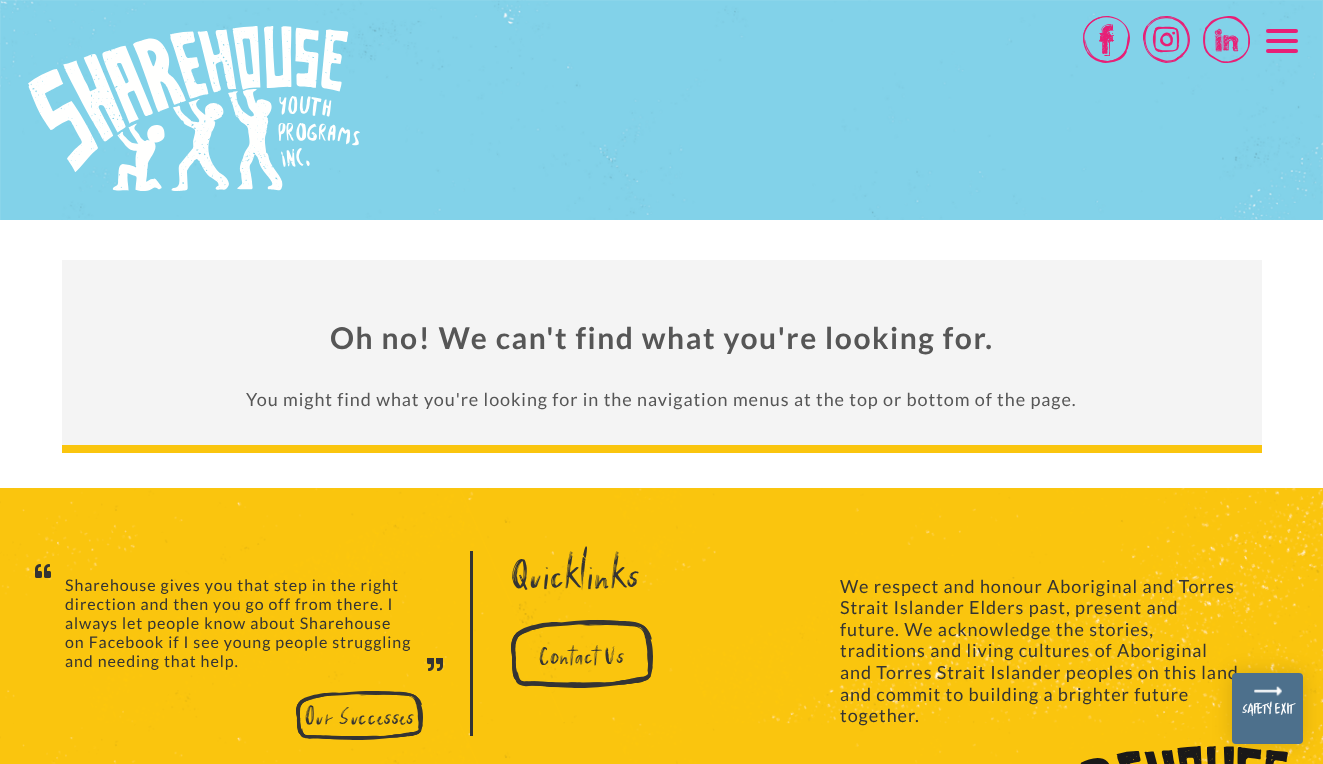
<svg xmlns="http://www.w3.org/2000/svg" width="1323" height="764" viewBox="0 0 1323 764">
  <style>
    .t1 { font: bold 30px Lato; letter-spacing: 1.55px; fill: #565656; }
    .t2 { font: 18px Lato; letter-spacing: 0.92px; fill: #565656; }
    .t3 { font: 16px Lato; letter-spacing: 0.92px; fill: #343434; }
    .t4 { font: 21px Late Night; letter-spacing: 1px; fill: #343434; }
    .t5 { font: 34px Late Night; letter-spacing: 0.92px; fill: #343434; }
    .t6 { font: 18px Lato; letter-spacing: 0.92px; fill: #343434; }
    .t7 { font: bold 10.5px Late Night; letter-spacing: 0.5px; fill: #fff; }
  </style>
  <rect width="100%" height="100%" fill="#fff"/>
  <image x="0" y="0" width="1323" height="220" href="images/1.png"/>
  <image x="28" y="26" width="332" height="165" href="images/2.png"/>
  <image x="1083" y="16" width="47" height="47" href="images/3.png"/>
  <image x="1143" y="16" width="47" height="47" href="images/4.png"/>
  <image x="1203" y="16" width="47" height="47" href="images/5.png"/>
  <rect x="1266" y="39" width="32" height="4" rx="2" fill="#e81f76"/>
  <rect x="1266" y="29" width="32" height="4" rx="2" fill="#e81f76"/>
  <rect x="1266" y="49" width="32" height="4" rx="2" fill="#e81f76"/>
  <rect x="62" y="260" width="1200" height="185" fill="#f4f4f4"/>
  <rect x="62" y="445" width="1200" height="8" fill="#fac50e"/>
  <text x="330" y="349" class="t1">Oh no! We can't find what you're looking for.</text>
  <text x="246" y="406" class="t2">You might find what you're looking for in the navigation menus at the top or bottom of the page.</text>
  <image x="0" y="488" width="1323" height="276" href="images/6.png"/>
  <image x="35" y="564" width="16" height="14" href="images/7.png"/>
  <text x="65" y="591" class="t3">Sharehouse gives you that step in the right</text>
  <text x="65" y="610" class="t3">direction and then you go off from there. I</text>
  <text x="65" y="629" class="t3">always let people know about Sharehouse</text>
  <text x="65" y="648" class="t3">on Facebook if I see young people struggling</text>
  <text x="65" y="667" class="t3">and needing that help.</text>
  <image x="427" y="658" width="16" height="13" href="images/8.png"/>
  <rect x="470" y="551" width="3" height="185" fill="#343434"/>
  <image x="296" y="691" width="127" height="49" href="images/9.png"/>
  <text x="305" y="724" class="t4">Our Successes</text>
  <text x="511" y="587" class="t5">Quicklinks</text>
  <image x="511" y="620" width="142" height="68" href="images/10.png"/>
  <text x="539" y="663" class="t4">Contact Us</text>
  <text x="840" y="593" class="t6">We respect and honour Aboriginal and Torres</text>
  <text x="840" y="614" class="t6">Strait Islander Elders past, present and</text>
  <text x="840" y="636" class="t6">future. We acknowledge the stories,</text>
  <text x="840" y="657" class="t6">traditions and living cultures of Aboriginal</text>
  <text x="840" y="679" class="t6">and Torres Strait Islander peoples on this land</text>
  <text x="840" y="701" class="t6">and commit to building a brighter future</text>
  <text x="840" y="722" class="t6">together.</text>
  <image x="1080" y="746" width="208" height="18" href="images/11.png"/>
  <rect x="1232" y="673" width="71" height="71" rx="4" fill="#00000024" filter="blur(10px)"/>
  <rect x="1232" y="673" width="71" height="71" rx="4" fill="#4d708c"/>
  <image x="1254" y="686" width="28" height="11" href="images/12.png"/>
  <text x="1242" y="713" class="t7">SAFETY EXIT</text>
</svg>
